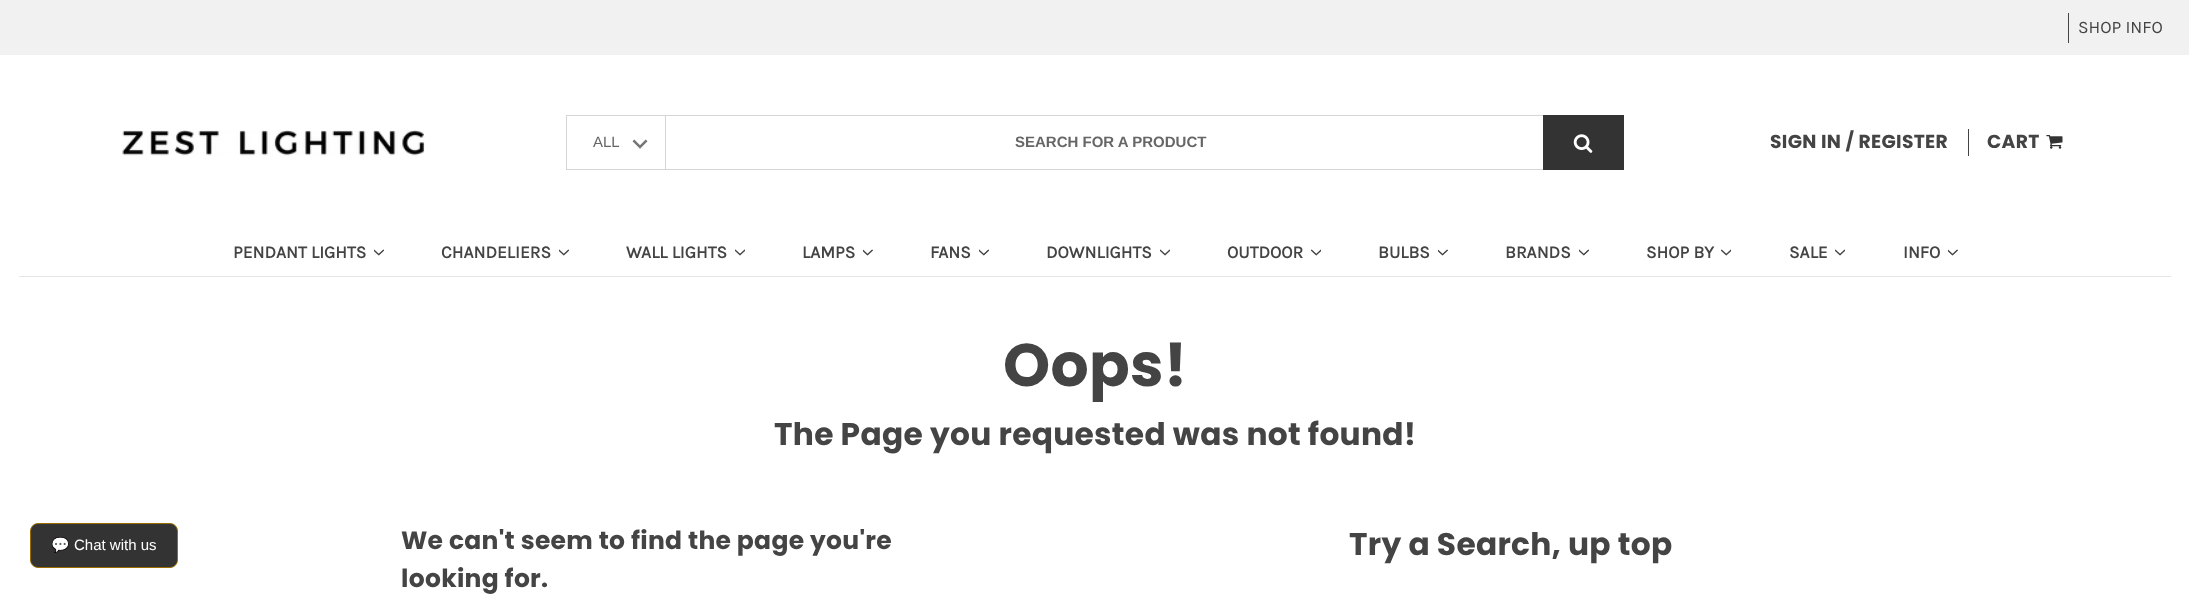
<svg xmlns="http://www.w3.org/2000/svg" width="2189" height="597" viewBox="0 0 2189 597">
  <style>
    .t1 { font: 15px Noto Color Emoji; fill: #fff; }
    .t2 { font: 15px Liberation Sans; fill: #fff; }
    .t3 { font: 17.5px Karla; fill: #444; }
    .t4 { font: 15px Liberation Sans; fill: #666; }
    .t5 { font: bold 15px Liberation Sans; fill: #666; }
    .t6 { font: bold 18.75px Poppins; letter-spacing: 0.3px; fill: #444; }
    .t7 { font: bold 17.5px Karla; fill: #444; }
    .t8 { font: bold 60px Poppins; letter-spacing: 0.3px; fill: #444; }
    .t9 { font: bold 31.25px Poppins; letter-spacing: 0.3px; fill: #444; }
    .t10 { font: bold 25px Poppins; letter-spacing: 0.3px; fill: #444; }
  </style>
  <rect width="100%" height="100%" fill="#fff"/>
  <rect x="30.5" y="523.5" width="147" height="44" rx="7.5" fill="#333" stroke="#996d00"/>
  <text x="51" y="550" class="t1">💬</text>
  <text x="74" y="550" class="t2">Chat with us</text>
  <rect x="0" y="0" width="2189" height="55" fill="#f1f1f1"/>
  <rect x="2068" y="13" width="1" height="30" fill="#444"/>
  <text x="2078" y="33" class="t3">SHOP INFO</text>
  <image x="122" y="130" width="303" height="26" href="images/1.png"/>
  <image x="632" y="139" width="16" height="10" href="images/2.png"/>
  <rect x="566.5" y="115.5" width="99" height="54" fill="none" stroke="#d5d5d5"/>
  <text x="593" y="147" class="t4">ALL</text>
  <rect x="666" y="115" width="877" height="1" fill="#d5d5d5"/>
  <rect x="666" y="169" width="877" height="1" fill="#d5d5d5"/>
  <text x="1015" y="147" class="t5">SEARCH FOR A PRODUCT</text>
  <rect x="1543" y="115" width="81" height="55" fill="#333"/>
  <image x="1573" y="134" width="20" height="19" href="images/3.png"/>
  <text x="1770" y="148" class="t6">SIGN IN / REGISTER</text>
  <rect x="1968" y="129" width="1" height="27" fill="#444"/>
  <text x="1987" y="148" class="t6">CART</text>
  <image x="2046" y="135" width="17" height="14" href="images/4.png"/>
  <rect x="19" y="276" width="2152" height="1" fill="#e5e5e5"/>
  <text x="233" y="258" class="t7">PENDANT LIGHTS</text>
  <image x="374" y="249" width="10" height="7" href="images/5.png"/>
  <text x="441" y="258" class="t7">CHANDELIERS</text>
  <image x="559" y="249" width="10" height="7" href="images/5.png"/>
  <text x="626" y="258" class="t7">WALL LIGHTS</text>
  <image x="735" y="249" width="10" height="7" href="images/6.png"/>
  <text x="802" y="258" class="t7">LAMPS</text>
  <image x="863" y="249" width="10" height="7" href="images/7.png"/>
  <text x="930" y="258" class="t7">FANS</text>
  <image x="979" y="249" width="10" height="7" href="images/5.png"/>
  <text x="1046" y="258" class="t7">DOWNLIGHTS</text>
  <image x="1160" y="249" width="10" height="7" href="images/6.png"/>
  <text x="1227" y="258" class="t7">OUTDOOR</text>
  <image x="1311" y="249" width="10" height="7" href="images/8.png"/>
  <text x="1378" y="258" class="t7">BULBS</text>
  <image x="1438" y="249" width="10" height="7" href="images/7.png"/>
  <text x="1505" y="258" class="t7">BRANDS</text>
  <image x="1579" y="249" width="10" height="7" href="images/5.png"/>
  <text x="1646" y="258" class="t7">SHOP BY</text>
  <image x="1721" y="249" width="10" height="7" href="images/8.png"/>
  <text x="1789" y="258" class="t7">SALE</text>
  <image x="1835" y="249" width="10" height="7" href="images/6.png"/>
  <text x="1903" y="258" class="t7">INFO</text>
  <image x="1948" y="249" width="10" height="7" href="images/7.png"/>
  <text x="1003" y="386" class="t8">Oops!</text>
  <text x="774" y="445" class="t9">The Page you requested was not found!</text>
  <text x="401" y="549" class="t10">We can't seem to find the page you're</text>
  <text x="401" y="587" class="t10">looking for.</text>
  <text x="1349" y="555" class="t9">Try a Search, up top</text>
</svg>
